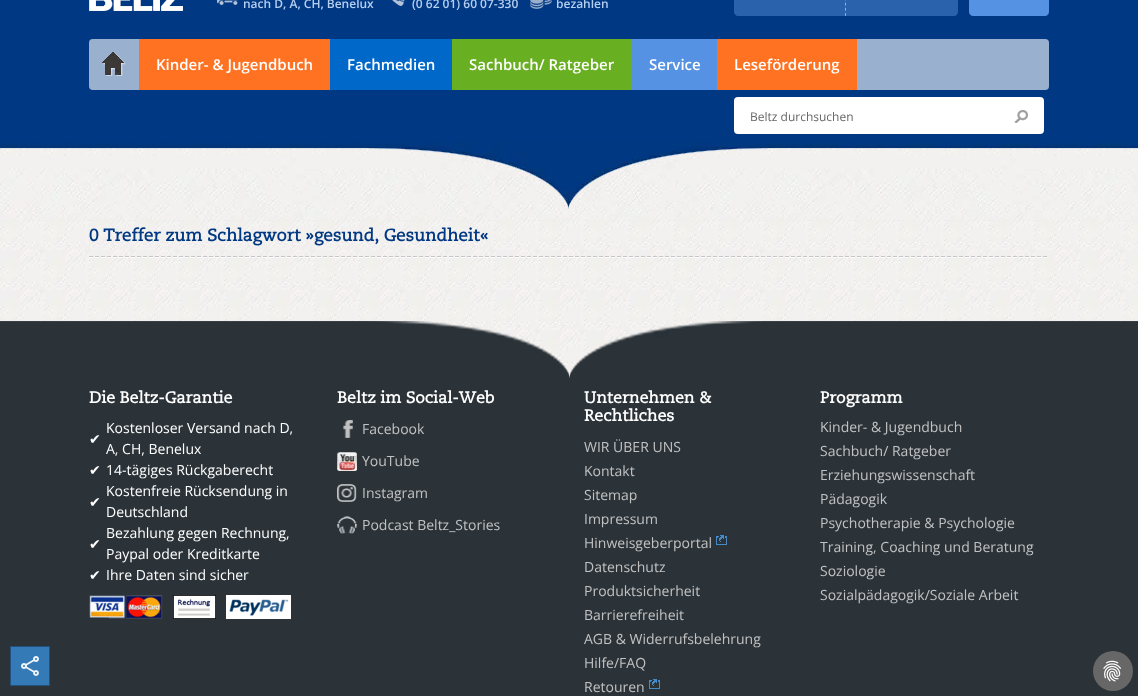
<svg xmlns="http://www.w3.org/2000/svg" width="1138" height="696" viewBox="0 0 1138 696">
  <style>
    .t1 { font: 600 12px Open Sans; fill: #b5cff1; }
    .t2 { font: 600 15px Open Sans; fill: #fff; }
    .t3 { font: 12px Open Sans; fill: #666; }
    .t4 { font: bold 17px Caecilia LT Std; fill: #003883; }
    .t5 { font: bold 16px Caecilia LT Std; fill: #fff; }
    .t6 { font: 14px DejaVu Sans; fill: #fff; }
    .t7 { font: 14px Open Sans; fill: #fff; }
    .t8 { font: 14px Open Sans; fill: #c2c2c2; }
  </style>
  <rect width="100%" height="100%" fill="#fff"/>
  <image x="0" y="148" width="1138" height="231" href="images/1.png"/>
  <image x="0" y="141" width="1138" height="68" href="images/2.png"/>
  <rect x="0" y="0" width="1138" height="141" fill="#003883"/>
  <image x="89" y="0" width="94" height="11" href="images/3.png"/>
  <image x="217" y="0" width="21" height="5" href="images/4.png"/>
  <text x="243" y="8" class="t1">nach D, A, CH, Benelux</text>
  <image x="392" y="0" width="13" height="6" href="images/5.png"/>
  <text x="412" y="8" class="t1">(0 62 01) 60 07-330</text>
  <image x="530" y="0" width="22" height="9" href="images/6.png"/>
  <text x="556" y="8" class="t1">bezahlen</text>
  <path d="M734-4H958V12C958 14 956 16 954 16H738C736 16 734 14 734 12Z" fill="#2b62ac"/>
  <path d="M845.5-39V16" fill="none" stroke="#91add4" stroke-dasharray="3 2.2"/>
  <path d="M969-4H1049V12C1049 14 1047 16 1045 16H973C971 16 969 14 969 12Z" fill="#5592e3"/>
  <rect x="89" y="39" width="960" height="51" rx="4" fill="#5e82b1"/>
  <rect x="89" y="39" width="960" height="51" rx="4" fill="#ffffff5e"/>
  <image x="102" y="52" width="24" height="24" href="images/7.png"/>
  <rect x="139" y="39" width="191" height="51" fill="#ff7222"/>
  <text x="156" y="70" class="t2">Kinder- &amp; Jugendbuch</text>
  <rect x="330" y="39" width="122" height="51" fill="#0068c9"/>
  <text x="347" y="70" class="t2">Fachmedien</text>
  <rect x="452" y="39" width="180" height="51" fill="#68af21"/>
  <text x="469" y="70" class="t2">Sachbuch/ Ratgeber</text>
  <rect x="632" y="39" width="85" height="51" fill="#5592e3"/>
  <text x="649" y="70" class="t2">Service</text>
  <rect x="717" y="39" width="140" height="51" fill="#ff7222"/>
  <text x="734" y="70" class="t2">Leseförderung</text>
  <rect x="734" y="97" width="310" height="37" rx="4" fill="#fff"/>
  <text x="750" y="121" class="t3">Beltz durchsuchen</text>
  <image x="1014" y="110" width="14" height="13" href="images/8.png"/>
  <image x="0" y="154" width="1138" height="68" href="images/9.png"/>
  <text x="89" y="241" class="t4">0 Treffer zum Schlagwort »gesund, Gesundheit«</text>
  <image x="89" y="256" width="958" height="2" href="images/10.png"/>
  <image x="0" y="321" width="1138" height="375" href="images/12.png"/>
  <rect x="10.5" y="646.5" width="39" height="39" fill="#337ab7" stroke="#22527b"/>
  <image x="21" y="656" width="18" height="20" href="images/11.png"/>
  <text x="89" y="403" class="t5">Die Beltz-Garantie</text>
  <text x="89" y="444" class="t6">✔</text>
  <text x="106" y="433" class="t7">Kostenloser Versand nach D,</text>
  <text x="106" y="454" class="t7">A, CH, Benelux</text>
  <text x="89" y="475" class="t6">✔</text>
  <text x="106" y="475" class="t7">14-tägiges Rückgaberecht</text>
  <text x="89" y="507" class="t6">✔</text>
  <text x="106" y="496" class="t7">Kostenfreie Rücksendung in</text>
  <text x="106" y="517" class="t7">Deutschland</text>
  <text x="89" y="549" class="t6">✔</text>
  <text x="106" y="538" class="t7">Bezahlung gegen Rechnung,</text>
  <text x="106" y="559" class="t7">Paypal oder Kreditkarte</text>
  <text x="89" y="580" class="t6">✔</text>
  <text x="106" y="580" class="t7">Ihre Daten sind sicher</text>
  <image x="89" y="595" width="74" height="24" href="images/13.png"/>
  <image x="173" y="595" width="43" height="24" href="images/14.png"/>
  <image x="226" y="595" width="65" height="24" href="images/15.png"/>
  <text x="337" y="403" class="t5">Beltz im Social-Web</text>
  <image x="343" y="420" width="10" height="18" href="images/16.png"/>
  <text x="362" y="434" class="t8">Facebook</text>
  <image x="337" y="452" width="20" height="19" href="images/17.png"/>
  <text x="362" y="466" class="t8">YouTube</text>
  <image x="337" y="484" width="20" height="18" href="images/18.png"/>
  <text x="362" y="498" class="t8">Instagram</text>
  <image x="337" y="516" width="20" height="18" href="images/19.png"/>
  <text x="362" y="530" class="t8">Podcast Beltz_Stories</text>
  <text x="584" y="403" class="t5">Unternehmen &amp;</text>
  <text x="584" y="421" class="t5">Rechtliches</text>
  <text x="584" y="452" class="t8">WIR ÜBER UNS</text>
  <text x="584" y="476" class="t8">Kontakt</text>
  <text x="584" y="500" class="t8">Sitemap</text>
  <text x="584" y="524" class="t8">Impressum</text>
  <image x="716" y="535" width="11" height="10" href="images/20.png"/>
  <text x="584" y="548" class="t8">Hinweisgeberportal</text>
  <text x="584" y="572" class="t8">Datenschutz</text>
  <text x="584" y="596" class="t8">Produktsicherheit</text>
  <text x="584" y="620" class="t8">Barrierefreiheit</text>
  <text x="584" y="644" class="t8">AGB &amp; Widerrufsbelehrung</text>
  <text x="584" y="668" class="t8">Hilfe/FAQ</text>
  <image x="649" y="679" width="11" height="10" href="images/20.png"/>
  <text x="584" y="692" class="t8">Retouren</text>
  <text x="820" y="403" class="t5">Programm</text>
  <text x="820" y="432" class="t8">Kinder- &amp; Jugendbuch</text>
  <text x="820" y="456" class="t8">Sachbuch/ Ratgeber</text>
  <text x="820" y="480" class="t8">Erziehungswissenschaft</text>
  <text x="820" y="504" class="t8">Pädagogik</text>
  <text x="820" y="528" class="t8">Psychotherapie &amp; Psychologie</text>
  <text x="820" y="552" class="t8">Training, Coaching und Beratung</text>
  <text x="820" y="576" class="t8">Soziologie</text>
  <text x="820" y="600" class="t8">Sozialpädagogik/Soziale Arbeit</text>
  <circle cx="1113" cy="671" r="20" fill="#676767"/>
  <image x="1103" y="660" width="18" height="22" href="images/21.png"/>
</svg>
